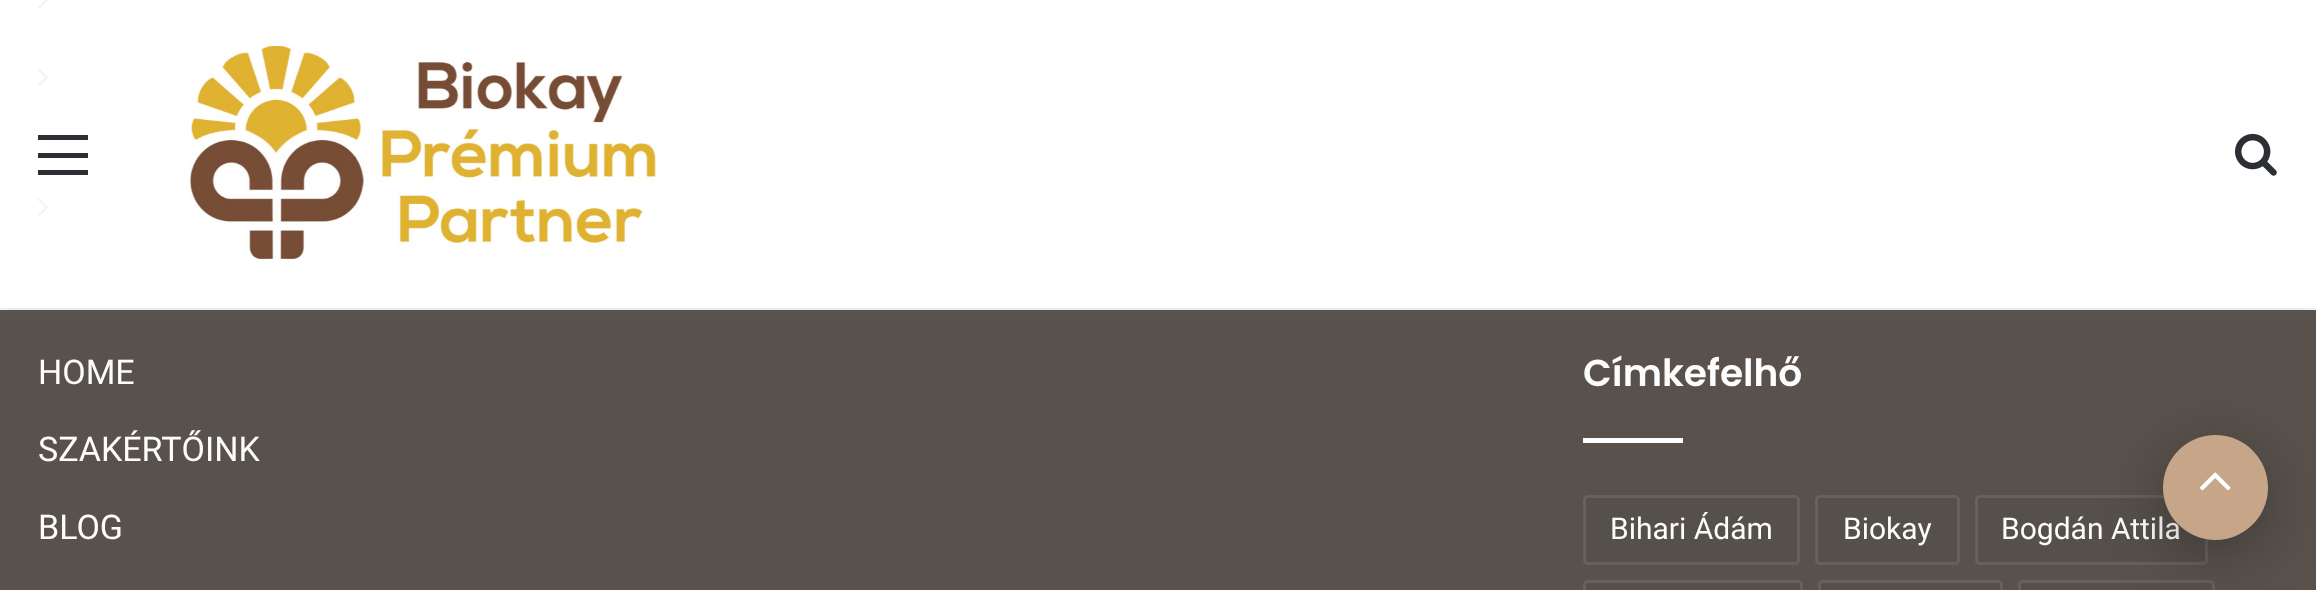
<svg xmlns="http://www.w3.org/2000/svg" width="2316" height="590" viewBox="0 0 2316 590">
  <style>
    .t1 { font: 34px Roboto; fill: #fdfdfd; }
    .t2 { font: 600 37.5px Poppins; fill: #fdfdfd; }
    .t3 { font: 30px Roboto; fill: #fdfdfd; }
  </style>
  <defs>
    <clipPath id="clip1"><path d="M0 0H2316V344H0ZM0 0H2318V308H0Z" clip-rule="evenodd"/></clipPath>
  </defs>
  <rect width="100%" height="100%" fill="#fff"/>
  <image x="37" y="0" width="12" height="9" href="images/3.png"/>
  <image x="37" y="68" width="12" height="19" href="images/4.png"/>
  <image x="37" y="198" width="12" height="19" href="images/4.png"/>
  <rect x="0" y="310" width="2316" height="280" fill="#59524c"/>
  <g clip-path="url(#clip1)">
    <rect x="0" y="5" width="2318" height="308" fill="#63636333" filter="blur(10px)"/>
  </g>
  <rect x="0" y="0" width="2316" height="308" fill="#fffffff2"/>
  <rect x="38" y="153" width="50" height="5" fill="#2c2f34"/>
  <rect x="38" y="135" width="50" height="5" fill="#2c2f34"/>
  <rect x="38" y="170" width="50" height="5" fill="#2c2f34"/>
  <image x="185" y="46" width="475" height="217" href="images/1.png"/>
  <image x="2235" y="133" width="42" height="43" href="images/2.png"/>
  <text x="38" y="384" class="t1">HOME</text>
  <text x="38" y="461" class="t1">SZAKÉRTŐINK</text>
  <text x="38" y="539" class="t1">BLOG</text>
  <text x="1583" y="386" class="t2">Címkefelhő</text>
  <rect x="1583" y="438" width="100" height="5" fill="#fdfdfd"/>
  <rect x="1584.5" y="496.5" width="214" height="67" rx="3.5" fill="#56504a" stroke="#67615c" stroke-width="3"/>
  <text x="1610" y="539" class="t3">Bihari Ádám</text>
  <rect x="1816.5" y="496.5" width="142" height="67" rx="3.5" fill="#56504a" stroke="#67615c" stroke-width="3"/>
  <text x="1843" y="539" class="t3">Biokay</text>
  <rect x="1976.5" y="496.5" width="230" height="67" rx="3.5" fill="#56504a" stroke="#67615c" stroke-width="3"/>
  <text x="2001" y="539" class="t3">Bogdán Attila</text>
  <rect x="1584.5" y="581.5" width="217" height="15" rx="3.5" fill="#56504a" stroke="#67615c" stroke-width="3"/>
  <rect x="1819.5" y="581.5" width="182" height="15" rx="3.5" fill="#56504a" stroke="#67615c" stroke-width="3"/>
  <rect x="2019.5" y="581.5" width="194" height="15" rx="3.5" fill="#56504a" stroke="#67615c" stroke-width="3"/>
  <rect x="2163" y="448" width="105" height="105" rx="52.5" fill="#0000004d" filter="blur(31px)"/>
  <circle cx="2215.5" cy="487.5" r="52.5" fill="#c7a589"/>
  <image x="2199" y="472" width="32" height="19" href="images/5.png"/>
</svg>
